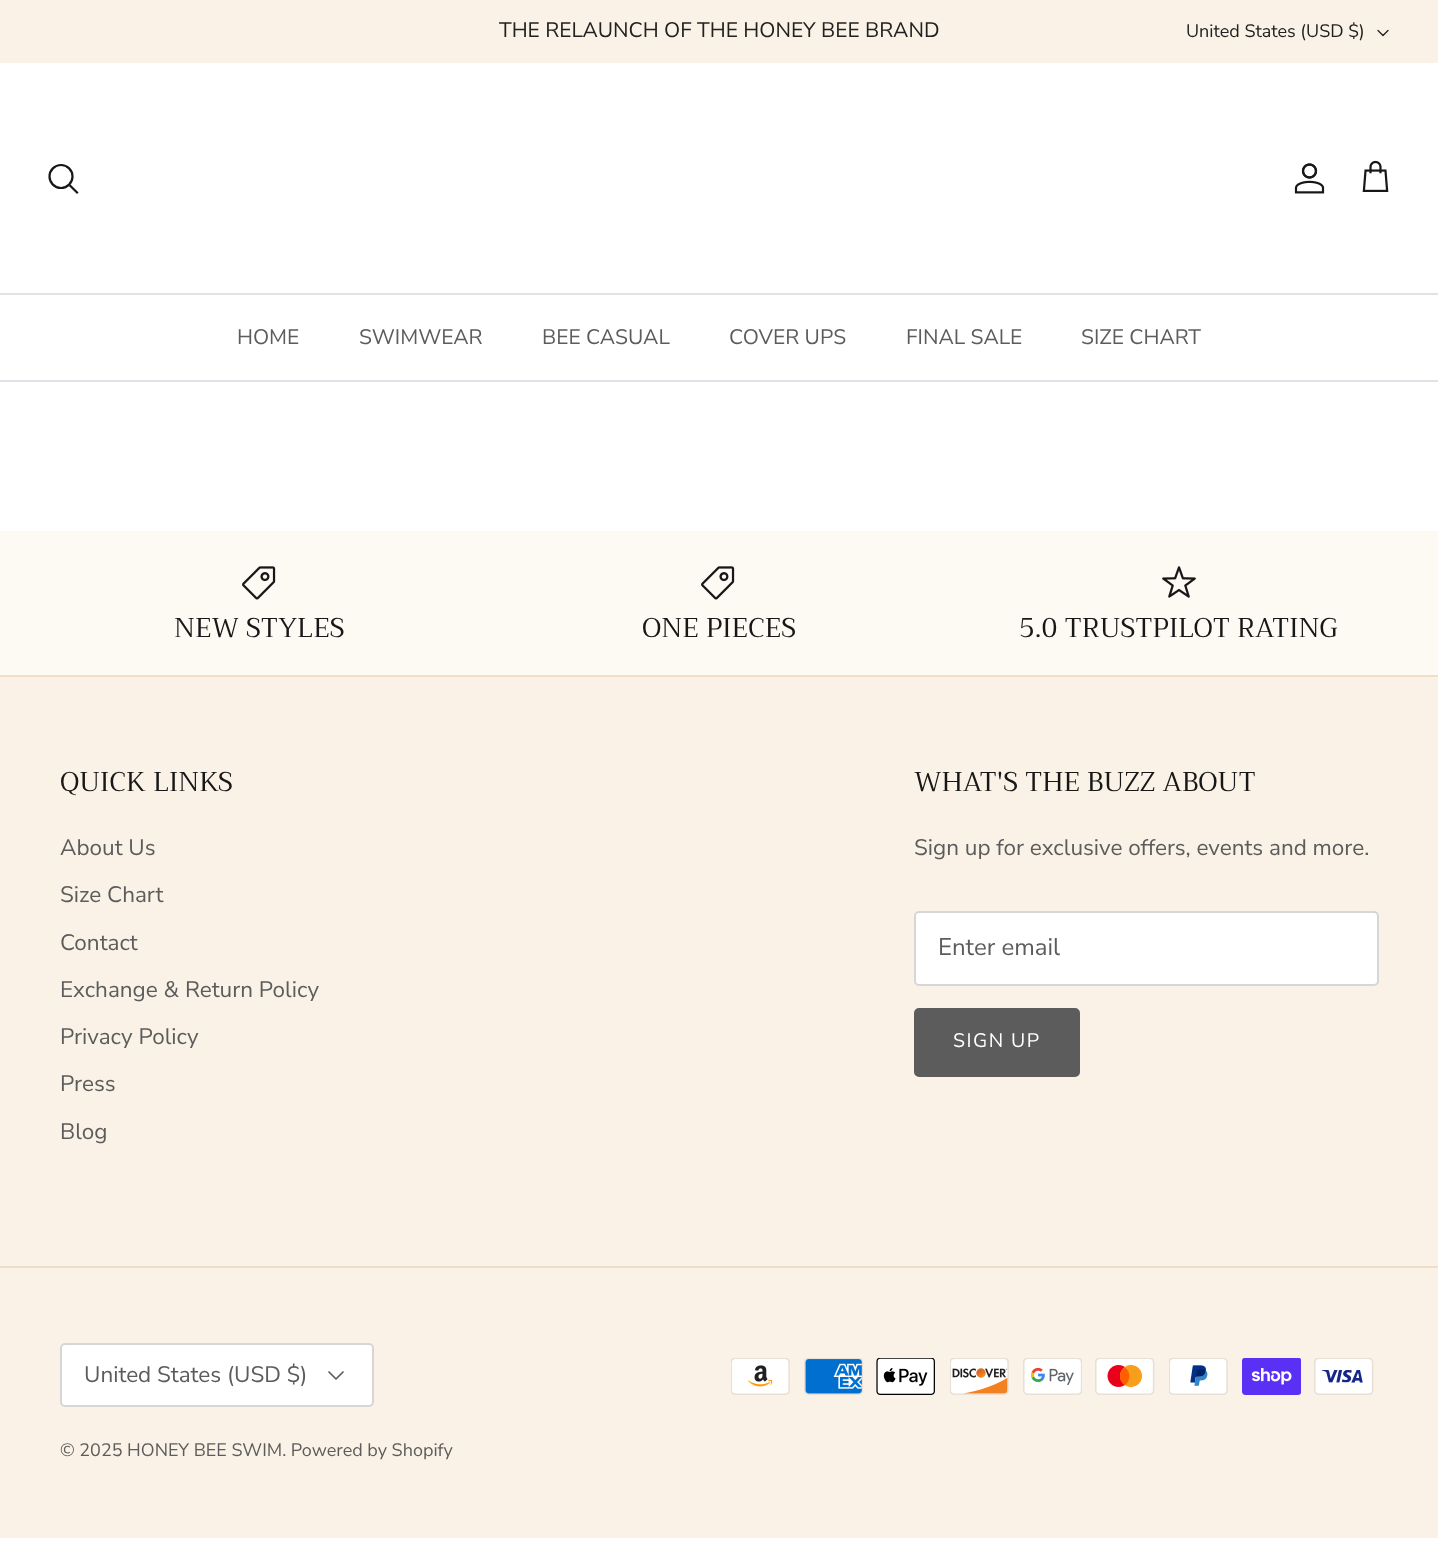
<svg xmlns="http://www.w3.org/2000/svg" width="1438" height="1552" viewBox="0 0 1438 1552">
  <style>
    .t1 { font: 21px Nunito Sans; fill: #212121; }
    .t2 { font: 18px Nunito Sans; fill: #212121; }
    .t3 { font: 21px Nunito Sans; fill: #5c5c5c; }
    .t4 { font: 27px Trirong; fill: #171717; }
    .t5 { font: 22.5px Nunito Sans; fill: #5c5c5c; }
    .t6 { font: 24px Nunito Sans; fill: #5c5c5c; }
    .t7 { font: 19.5px Nunito Sans; letter-spacing: 1.5px; fill: #fff; }
    .t8 { font: 18px Nunito Sans; fill: #5c5c5c; }
  </style>
  <rect width="100%" height="100%" fill="#fff"/>
  <rect x="0" y="0" width="1438" height="63" fill="#faf2e6"/>
  <text x="499" y="37" class="t1">THE RELAUNCH OF THE HONEY BEE BRAND</text>
  <text x="1186" y="37" class="t2">United States (USD $)</text>
  <path d="M1378 30.5L1383 35.5L1388 30.5" fill="none" stroke="#212121" stroke-width="1.3" stroke-linecap="round" stroke-linejoin="round"/>
  <rect x="0" y="293" width="1438" height="2" fill="#dfe3e8"/>
  <circle cx="61" cy="176.5" r="11.5" fill="none" stroke="#171717" stroke-width="2.2"/>
  <path d="M70.5 186L77 192.5" fill="none" stroke="#171717" stroke-width="2.2" stroke-linecap="square"/>
  <image x="1294" y="163" width="31" height="31" href="images/1.png"/>
  <image x="1362" y="160" width="27" height="32" href="images/2.png"/>
  <rect x="0" y="380" width="1438" height="2" fill="#dfe3e8"/>
  <text x="237" y="344" class="t3">HOME</text>
  <text x="359" y="344" class="t3">SWIMWEAR</text>
  <text x="542" y="344" class="t3">BEE CASUAL</text>
  <text x="729" y="344" class="t3">COVER UPS</text>
  <text x="906" y="344" class="t3">FINAL SALE</text>
  <text x="1081" y="344" class="t3">SIZE CHART</text>
  <rect x="0" y="677" width="1438" height="861" fill="#faf2e6"/>
  <rect x="0" y="531" width="1438" height="144" fill="#fcfaf3"/>
  <image x="242" y="566" width="34" height="34" href="images/3.png"/>
  <text x="174" y="637" class="t4">NEW STYLES</text>
  <image x="701" y="566" width="34" height="34" href="images/3.png"/>
  <text x="642" y="637" class="t4">ONE PIECES</text>
  <image x="1162" y="566" width="34" height="32" href="images/4.png"/>
  <text x="1019" y="637" class="t4">5.0 TRUSTPILOT RATING</text>
  <rect x="0" y="675" width="1438" height="2" fill="#efdfc7"/>
  <text x="60" y="791" class="t4">QUICK LINKS</text>
  <text x="60" y="855" class="t5">About Us</text>
  <text x="60" y="902" class="t5">Size Chart</text>
  <text x="60" y="950" class="t5">Contact</text>
  <text x="60" y="997" class="t5">Exchange &amp; Return Policy</text>
  <text x="60" y="1044" class="t5">Privacy Policy</text>
  <text x="60" y="1091" class="t5">Press</text>
  <text x="60" y="1139" class="t5">Blog</text>
  <text x="914" y="791" class="t4">WHAT'S THE BUZZ ABOUT</text>
  <text x="914" y="855" class="t5">Sign up for exclusive offers, events and more.</text>
  <rect x="915" y="912" width="463" height="73" rx="4" fill="#fff" stroke="#d6d6d6" stroke-width="2"/>
  <text x="938" y="955" class="t6">Enter email</text>
  <rect x="915" y="1009" width="164" height="67" rx="4" fill="#5c5c5c" stroke="#5c5c5c" stroke-width="2"/>
  <text x="953" y="1047" class="t7">SIGN UP</text>
  <rect x="0" y="1266" width="1438" height="2" fill="#efdfc7"/>
  <rect x="61" y="1344" width="312" height="62" rx="4" fill="#fff" stroke="#d6d6d6" stroke-width="2"/>
  <text x="84" y="1382" class="t5">United States (USD $)</text>
  <path d="M329 1372L336 1379L343 1372" fill="none" stroke="#5c5c5c" stroke-width="1.7" stroke-linecap="round" stroke-linejoin="round"/>
  <text x="60" y="1456" class="t8">© 2025 HONEY BEE SWIM. Powered by Shopify</text>
  <image x="731" y="1358" width="59" height="37" href="images/5.png"/>
  <image x="804" y="1358" width="59" height="37" href="images/6.png"/>
  <image x="876" y="1358" width="59" height="37" href="images/7.png"/>
  <image x="950" y="1358" width="59" height="37" href="images/8.png"/>
  <image x="1023" y="1358" width="59" height="37" href="images/9.png"/>
  <image x="1095" y="1358" width="60" height="37" href="images/10.png"/>
  <image x="1169" y="1358" width="59" height="37" href="images/11.png"/>
  <image x="1242" y="1358" width="59" height="37" href="images/12.png"/>
  <image x="1314" y="1358" width="60" height="37" href="images/13.png"/>
</svg>
